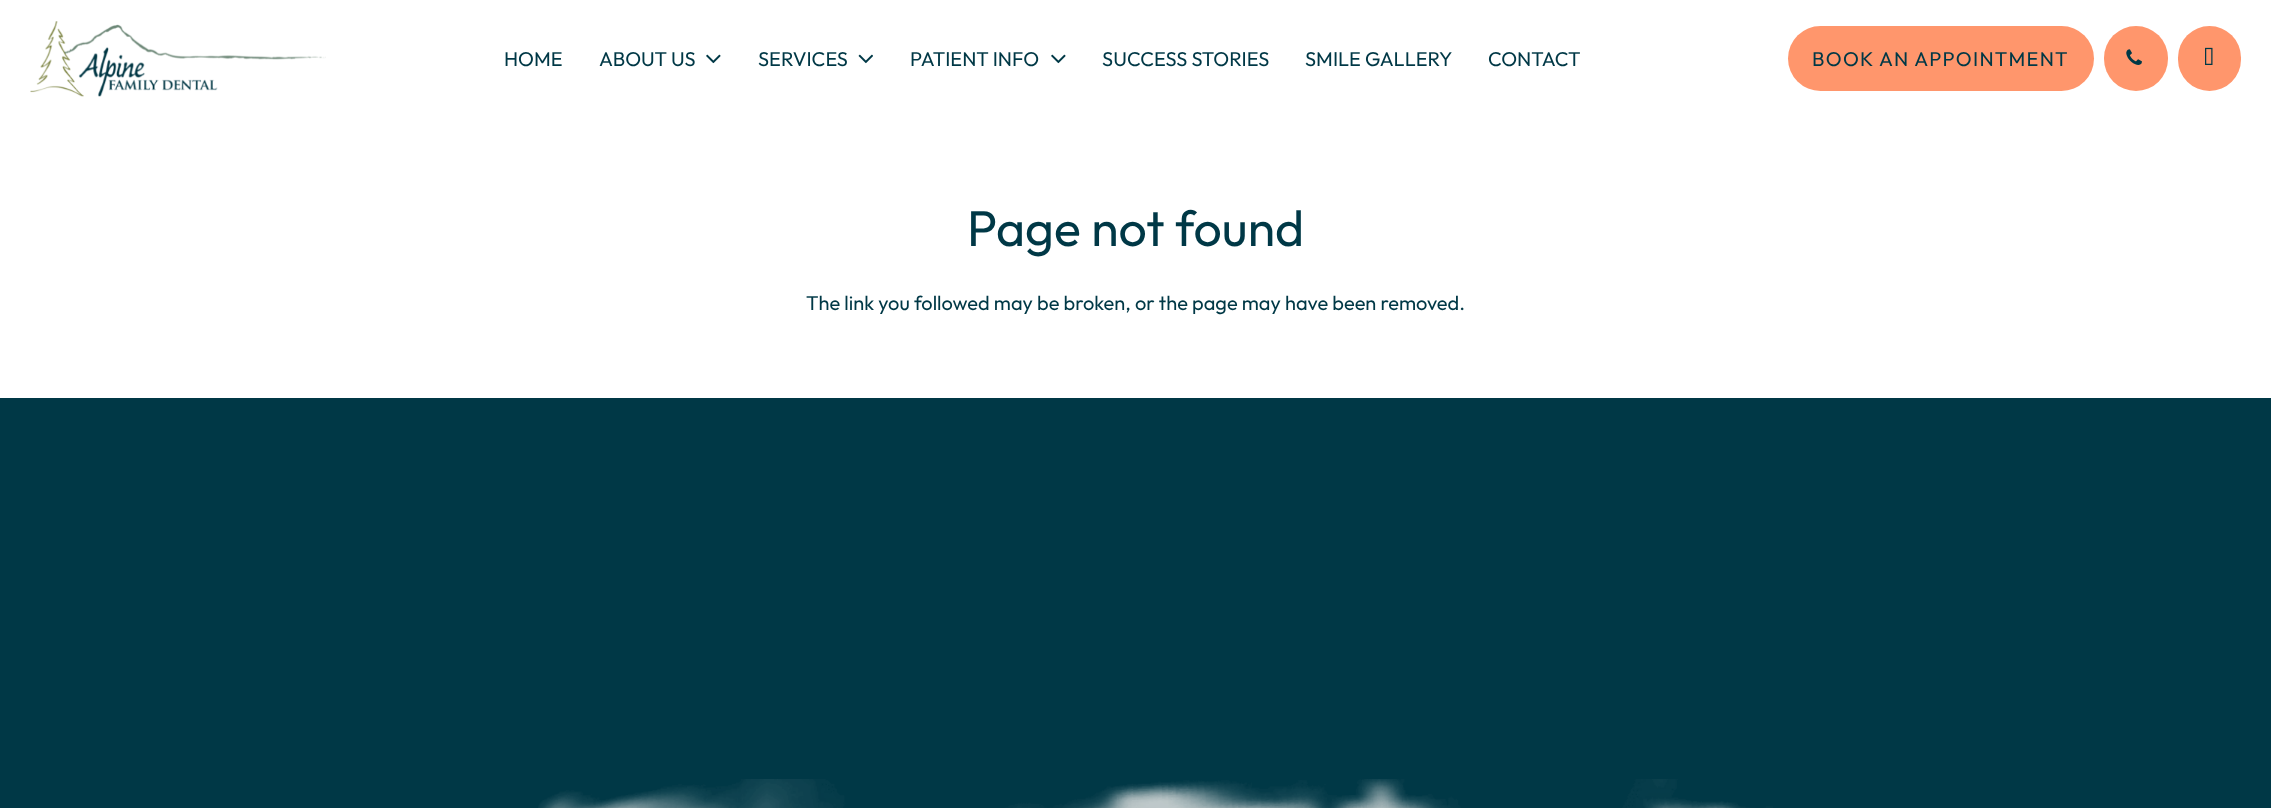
<svg xmlns="http://www.w3.org/2000/svg" width="2271" height="808" viewBox="0 0 2271 808">
  <style>
    .t1 { font: 100 20px Outfit; fill: #003846; }
    .t2 { font: 100 20px Outfit; letter-spacing: 1.25px; fill: #003846; }
    .t3 { font: 100 50px Outfit; fill: #003846; }
  </style>
  <rect width="100%" height="100%" fill="#fff"/>
  <image x="30" y="21" width="296" height="76" href="images/1.png"/>
  <text x="504" y="66" class="t1">HOME</text>
  <text x="599" y="66" class="t1">ABOUT US</text>
  <image x="706" y="54" width="15" height="10" href="images/2.png"/>
  <text x="758" y="66" class="t1">SERVICES</text>
  <image x="858" y="54" width="15" height="10" href="images/3.png"/>
  <text x="910" y="66" class="t1">PATIENT INFO</text>
  <image x="1051" y="54" width="15" height="10" href="images/2.png"/>
  <text x="1102" y="66" class="t1">SUCCESS STORIES</text>
  <text x="1305" y="66" class="t1">SMILE GALLERY</text>
  <text x="1488" y="66" class="t1">CONTACT</text>
  <rect x="1788" y="26" width="306" height="65" rx="32.5" fill="#ff966c"/>
  <text x="1812" y="66" class="t2">BOOK AN APPOINTMENT</text>
  <rect x="2104" y="26" width="64" height="65" rx="32" fill="#ff966c"/>
  <image x="2126" y="49" width="16" height="16" href="images/4.png"/>
  <rect x="2178" y="26" width="63" height="65" rx="31.5" fill="#ff966c"/>
  <image x="2205" y="47" width="8" height="18" href="images/5.png"/>
  <text x="967" y="246" class="t3">Page not found</text>
  <text x="806" y="310" class="t1">The link you followed may be broken, or the page may have been removed.</text>
  <rect x="0" y="398" width="2271" height="410" fill="#003846"/>
  <image x="538" y="779" width="1235" height="29" href="images/6.png"/>
</svg>
